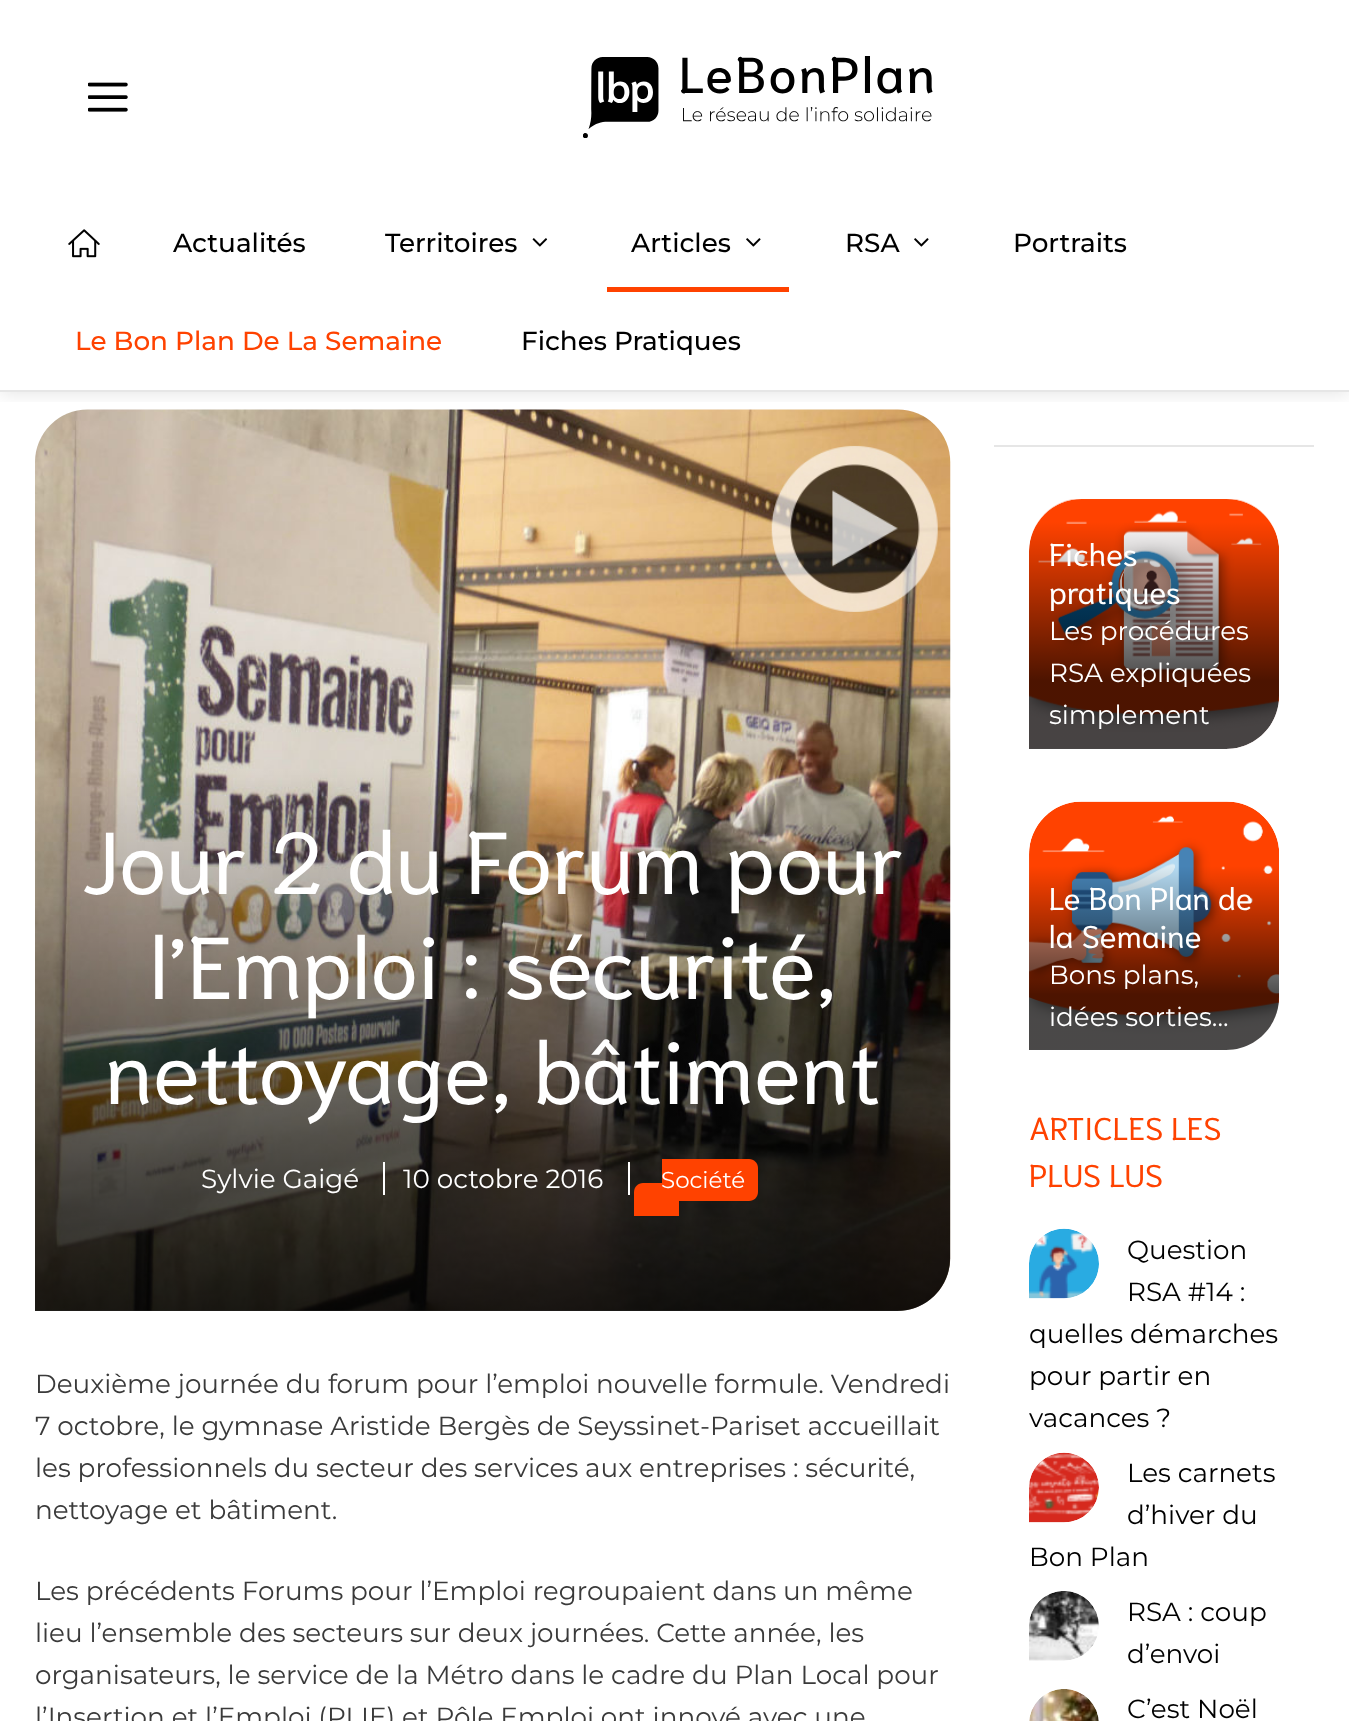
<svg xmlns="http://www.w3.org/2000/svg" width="1349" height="1721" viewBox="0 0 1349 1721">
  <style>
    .t1 { font: 500 26.25px Montserrat; fill: #000; }
    .t2 { font: 500 26.25px Montserrat; fill: #ff4200; }
    .t3 { font: 87.5px Niramit; fill: #fff; }
    .t4 { font: 26.25px Montserrat; fill: #fff; }
    .t5 { font: 23px Montserrat; fill: #fff; }
    .t6 { font: 26.25px Montserrat; fill: #3a3a3a; }
    .t7 { font: 31.5px Niramit; fill: #fff; }
    .t8 { font: 31.5px Niramit; fill: #ff4200; }
    .t9 { font: 26.25px Montserrat; fill: #000; }
  </style>
  <defs>
    <clipPath id="clip1"><rect x="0" y="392" width="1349" height="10"/></clipPath>
    <linearGradient id="g1" gradientUnits="userSpaceOnUse" x1="493" y1="1311" x2="493" y2="409"><stop offset="0" stop-color="#000" stop-opacity="0.8"/><stop offset="0.6" stop-color="#000" stop-opacity="0"/></linearGradient>
    <clipPath id="clip2"><path d="M1082 499H1226C1255.5 499 1279 522.5 1279 552V696C1279 725.5 1255.5 749 1226 749H1029V552C1029 522.5 1052.5 499 1082 499Z"/></clipPath>
    <linearGradient id="g2" gradientUnits="userSpaceOnUse" x1="1154" y1="749" x2="1154" y2="522"><stop offset="0.3" stop-color="#000" stop-opacity="0.7"/><stop offset="1" stop-color="#000" stop-opacity="0"/></linearGradient>
    <linearGradient id="g3" gradientUnits="userSpaceOnUse" x1="1154" y1="1050" x2="1154" y2="866"><stop offset="0.3" stop-color="#000" stop-opacity="0.7"/><stop offset="1" stop-color="#000" stop-opacity="0"/></linearGradient>
  </defs>
  <rect width="100%" height="100%" fill="#fff"/>
  <g clip-path="url(#clip1)">
    <rect x="0" y="196" width="1349" height="198" fill="#0000001a" filter="blur(9px)"/>
  </g>
  <rect x="0" y="184" width="1349" height="10" fill="#fff"/>
  <image x="88" y="82" width="40" height="30" href="images/1.png"/>
  <image x="583" y="56" width="350" height="82" href="images/2.png"/>
  <rect x="0" y="390" width="1349" height="2" fill="#e6e6e6"/>
  <image x="68" y="229" width="32" height="29" href="images/3.png"/>
  <text x="173" y="252" class="t1">Actualités</text>
  <text x="385" y="252" class="t1">Territoires</text>
  <image x="532" y="238" width="16" height="9" href="images/4.png"/>
  <rect x="607" y="194" width="182" height="1" fill="#fff"/>
  <text x="631" y="252" class="t1">Articles</text>
  <image x="746" y="238" width="15" height="9" href="images/5.png"/>
  <rect x="607" y="287" width="182" height="5" fill="#ff4200"/>
  <text x="845" y="252" class="t1">RSA</text>
  <image x="914" y="238" width="15" height="9" href="images/5.png"/>
  <text x="1013" y="252" class="t1">Portraits</text>
  <text x="75" y="350" class="t2">Le Bon Plan De La Semaine</text>
  <text x="521" y="350" class="t1">Fiches Pratiques</text>
  <image x="35" y="409" width="916" height="902" href="images/6.png"/>
  <path d="M88 410H897C926.5 410 950 433.5 950 463V1258C950 1287.5 926.5 1311 897 1311H35V463C35 433.5 58.5 410 88 410Z" fill="url(#g1)"/>
  <text x="81" y="894" class="t3">Jour 2 du Forum pour</text>
  <text x="150" y="999" class="t3">l’Emploi : sécurité,</text>
  <text x="105" y="1104" class="t3">nettoyage, bâtiment</text>
  <text x="201" y="1188" class="t4">Sylvie Gaigé</text>
  <rect x="383" y="1162" width="2" height="33" fill="#fff"/>
  <text x="403" y="1188" class="t4">10 octobre 2016</text>
  <rect x="628" y="1162" width="2" height="33" fill="#fff"/>
  <path d="M643 1183H679V1216H634V1192C634 1187 638 1183 643 1183Z" fill="#ff4200"/>
  <path d="M662 1159H749C754 1159 758 1163 758 1168V1192C758 1197 754 1201 749 1201H662Z" fill="#ff4200"/>
  <text x="661" y="1188" class="t5">Société</text>
  <text x="35" y="1393" class="t6">Deuxième journée du forum pour l’emploi nouvelle formule. Vendredi</text>
  <text x="35" y="1435" class="t6">7 octobre, le gymnase Aristide Bergès de Seyssinet-Pariset accueillait</text>
  <text x="35" y="1477" class="t6">les professionnels du secteur des services aux entreprises : sécurité,</text>
  <text x="35" y="1519" class="t6">nettoyage et bâtiment.</text>
  <text x="35" y="1600" class="t6">Les précédents Forums pour l’Emploi regroupaient dans un même</text>
  <text x="35" y="1642" class="t6">lieu l’ensemble des secteurs sur deux journées. Cette année, les</text>
  <text x="35" y="1684" class="t6">organisateurs, le service de la Métro dans le cadre du Plan Local pour</text>
  <text x="35" y="1726" class="t6">l’Insertion et l’Emploi (PLIE) et Pôle Emploi ont innové avec une</text>
  <rect x="994" y="445" width="320" height="2" fill="#e6e6e6"/>
  <image x="1029" y="499" width="250" height="250" href="images/7.png"/>
  <g clip-path="url(#clip2)">
    <path d="M1029 522H1279V696C1279 725.5 1255.5 749 1226 749H1029Z" fill="url(#g2)"/>
  </g>
  <text x="1049" y="566" class="t7">Fiches</text>
  <text x="1049" y="604" class="t7">pratiques</text>
  <text x="1049" y="640" class="t4">Les procédures</text>
  <text x="1049" y="682" class="t4">RSA expliquées</text>
  <text x="1049" y="724" class="t4">simplement</text>
  <image x="1029" y="801" width="250" height="249" href="images/8.png"/>
  <path d="M1029 866H1279V997C1279 1026.5 1255.5 1050 1226 1050H1029Z" fill="url(#g3)"/>
  <text x="1049" y="910" class="t7">Le Bon Plan de</text>
  <text x="1049" y="948" class="t7">la Semaine</text>
  <text x="1049" y="984" class="t4">Bons plans,</text>
  <text x="1049" y="1026" class="t4">idées sorties...</text>
  <text x="1029" y="1140" class="t8">ARTICLES LES</text>
  <text x="1029" y="1187" class="t8">PLUS LUS</text>
  <image x="1029" y="1228" width="70" height="71" href="images/9.png"/>
  <text x="1127" y="1259" class="t9">Question</text>
  <text x="1127" y="1301" class="t9">RSA #14 :</text>
  <text x="1029" y="1343" class="t9">quelles démarches</text>
  <text x="1029" y="1385" class="t9">pour partir en</text>
  <text x="1029" y="1427" class="t9">vacances ?</text>
  <image x="1029" y="1452" width="70" height="71" href="images/10.png"/>
  <text x="1127" y="1482" class="t9">Les carnets</text>
  <text x="1127" y="1524" class="t9">d’hiver du</text>
  <text x="1029" y="1566" class="t9">Bon Plan</text>
  <image x="1029" y="1591" width="70" height="70" href="images/11.png"/>
  <text x="1127" y="1621" class="t9">RSA : coup</text>
  <text x="1127" y="1663" class="t9">d’envoi</text>
  <image x="1029" y="1689" width="70" height="32" href="images/12.png"/>
  <text x="1127" y="1718" class="t9">C’est Noël</text>
</svg>
